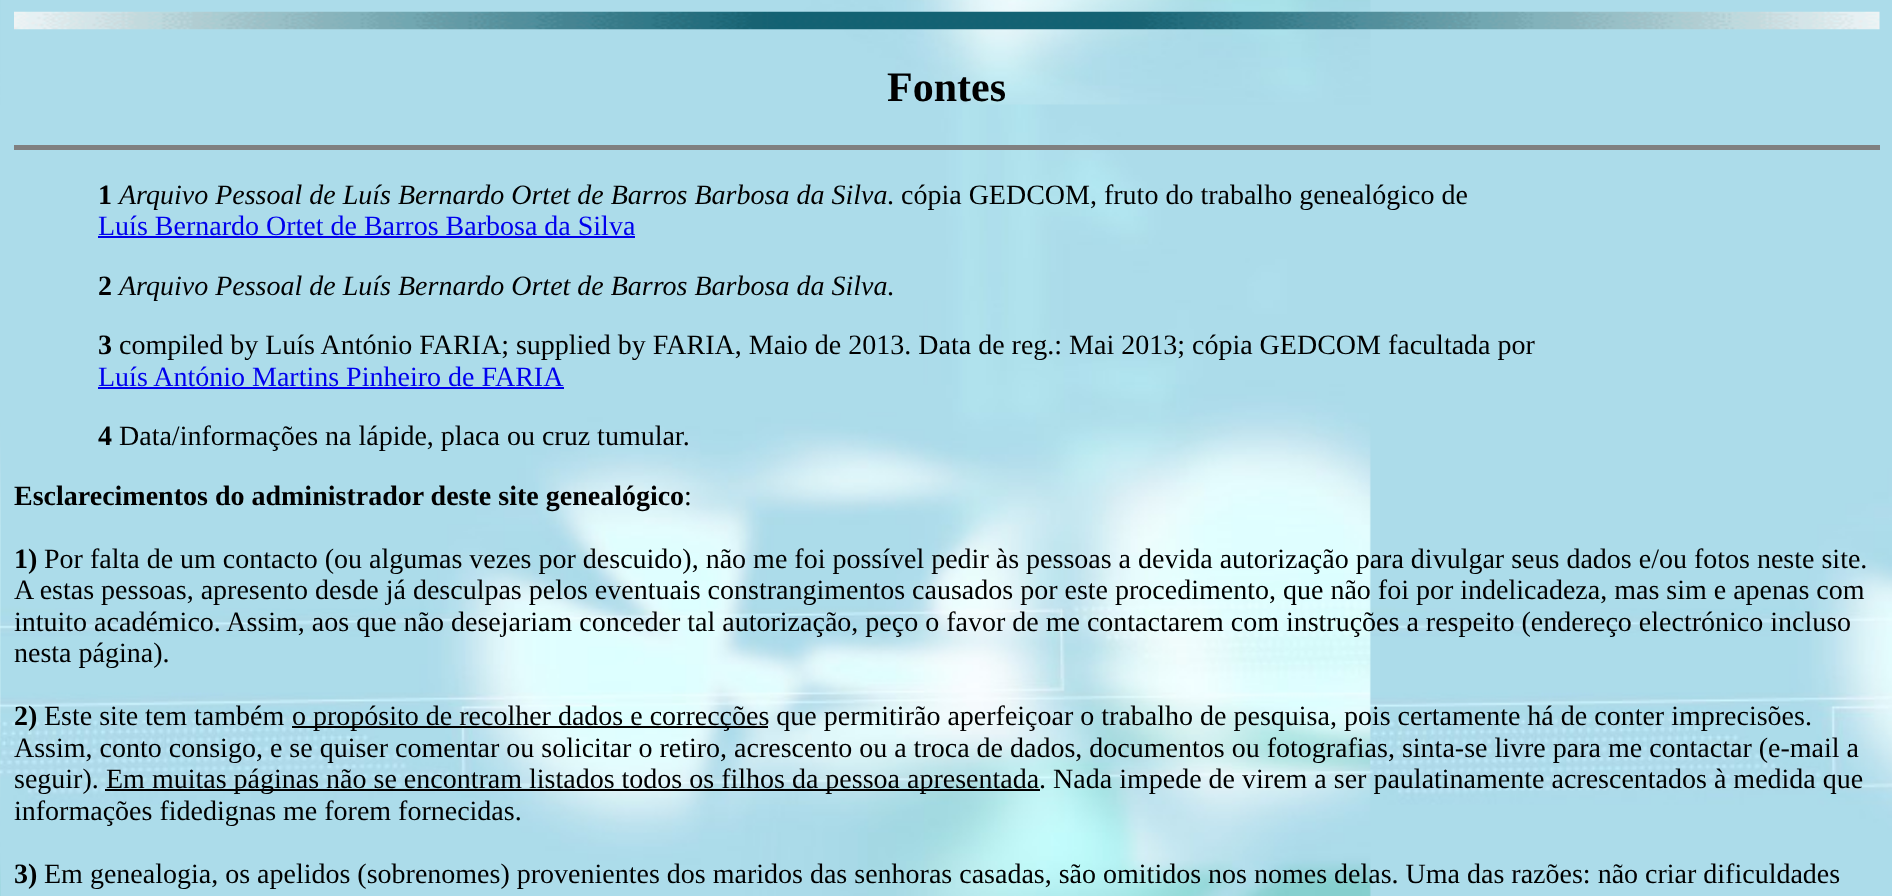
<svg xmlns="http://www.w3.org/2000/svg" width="1892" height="896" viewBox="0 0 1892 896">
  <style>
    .t1 { font: bold 42px Liberation Serif; fill: #000; }
    .t2 { font: bold 28px Liberation Serif; fill: #000; }
    .t3 { font: italic 28px Liberation Serif; fill: #000; }
    .t4 { font: 28px Liberation Serif; fill: #000; }
    .t5 { font: 28px Liberation Serif; fill: #00e; }
  </style>
  <rect width="100%" height="100%" fill="#fff"/>
  <image x="0" y="0" width="1892" height="896" href="images/1.png"/>
  <image x="14" y="11" width="1866" height="19" href="images/2.png"/>
  <text x="887" y="101" class="t1">Fontes</text>
  <rect x="14" y="145" width="1866" height="5" fill="#808080"/>
  <text x="98" y="204" class="t2">1</text>
  <text x="119" y="204" class="t3">Arquivo Pessoal de Luís Bernardo Ortet de Barros Barbosa da Silva</text>
  <text x="887" y="204" class="t4">. cópia GEDCOM, fruto do trabalho genealógico de</text>
  <text x="98" y="235" class="t5">Luís Bernardo Ortet de Barros Barbosa da Silva</text>
  <rect x="98" y="236" width="537" height="2" fill="#00e"/>
  <text x="98" y="295" class="t2">2</text>
  <text x="119" y="295" class="t3">Arquivo Pessoal de Luís Bernardo Ortet de Barros Barbosa da Silva</text>
  <text x="887" y="295" class="t4">.</text>
  <text x="98" y="354" class="t2">3</text>
  <text x="119" y="354" class="t4">compiled by Luís António FARIA; supplied by FARIA, Maio de 2013. Data de reg.: Mai 2013; cópia GEDCOM facultada por</text>
  <text x="98" y="386" class="t5">Luís António Martins Pinheiro de FARIA</text>
  <rect x="98" y="387" width="466" height="2" fill="#00e"/>
  <text x="98" y="445" class="t2">4</text>
  <text x="119" y="445" class="t4">Data/informações na lápide, placa ou cruz tumular.</text>
  <text x="14" y="505" class="t2">Esclarecimentos do administrador deste site genealógico</text>
  <text x="684" y="505" class="t4">:</text>
  <text x="14" y="568" class="t2">1)</text>
  <text x="44" y="568" class="t4">Por falta de um contacto (ou algumas vezes por descuido), não me foi possível pedir às pessoas a devida autorização para divulgar seus dados e/ou fotos neste site.</text>
  <text x="14" y="599" class="t4">A estas pessoas, apresento desde já desculpas pelos eventuais constrangimentos causados por este procedimento, que não foi por indelicadeza, mas sim e apenas com</text>
  <text x="14" y="631" class="t4">intuito académico. Assim, aos que não desejariam conceder tal autorização, peço o favor de me contactarem com instruções a respeito (endereço electrónico incluso</text>
  <text x="14" y="662" class="t4">nesta página).</text>
  <text x="14" y="725" class="t2">2)</text>
  <text x="44" y="725" class="t4">Este site tem também</text>
  <rect x="292" y="726" width="476" height="2" fill="#000"/>
  <text x="292" y="725" class="t4">o propósito de recolher dados e correcções que permitirão aperfeiçoar o trabalho de pesquisa, pois certamente há de conter imprecisões.</text>
  <text x="14" y="757" class="t4">Assim, conto consigo, e se quiser comentar ou solicitar o retiro, acrescento ou a troca de dados, documentos ou fotografias, sinta-se livre para me contactar (e-mail a</text>
  <text x="14" y="788" class="t4">seguir).</text>
  <rect x="105" y="789" width="935" height="2" fill="#000"/>
  <text x="106" y="788" class="t4">Em muitas páginas não se encontram listados todos os filhos da pessoa apresentada. Nada impede de virem a ser paulatinamente acrescentados à medida que</text>
  <text x="14" y="820" class="t4">informações fidedignas me forem fornecidas.</text>
  <text x="14" y="883" class="t2">3)</text>
  <text x="44" y="883" class="t4">Em genealogia, os apelidos (sobrenomes) provenientes dos maridos das senhoras casadas, são omitidos nos nomes delas. Uma das razões: não criar dificuldades</text>
</svg>
